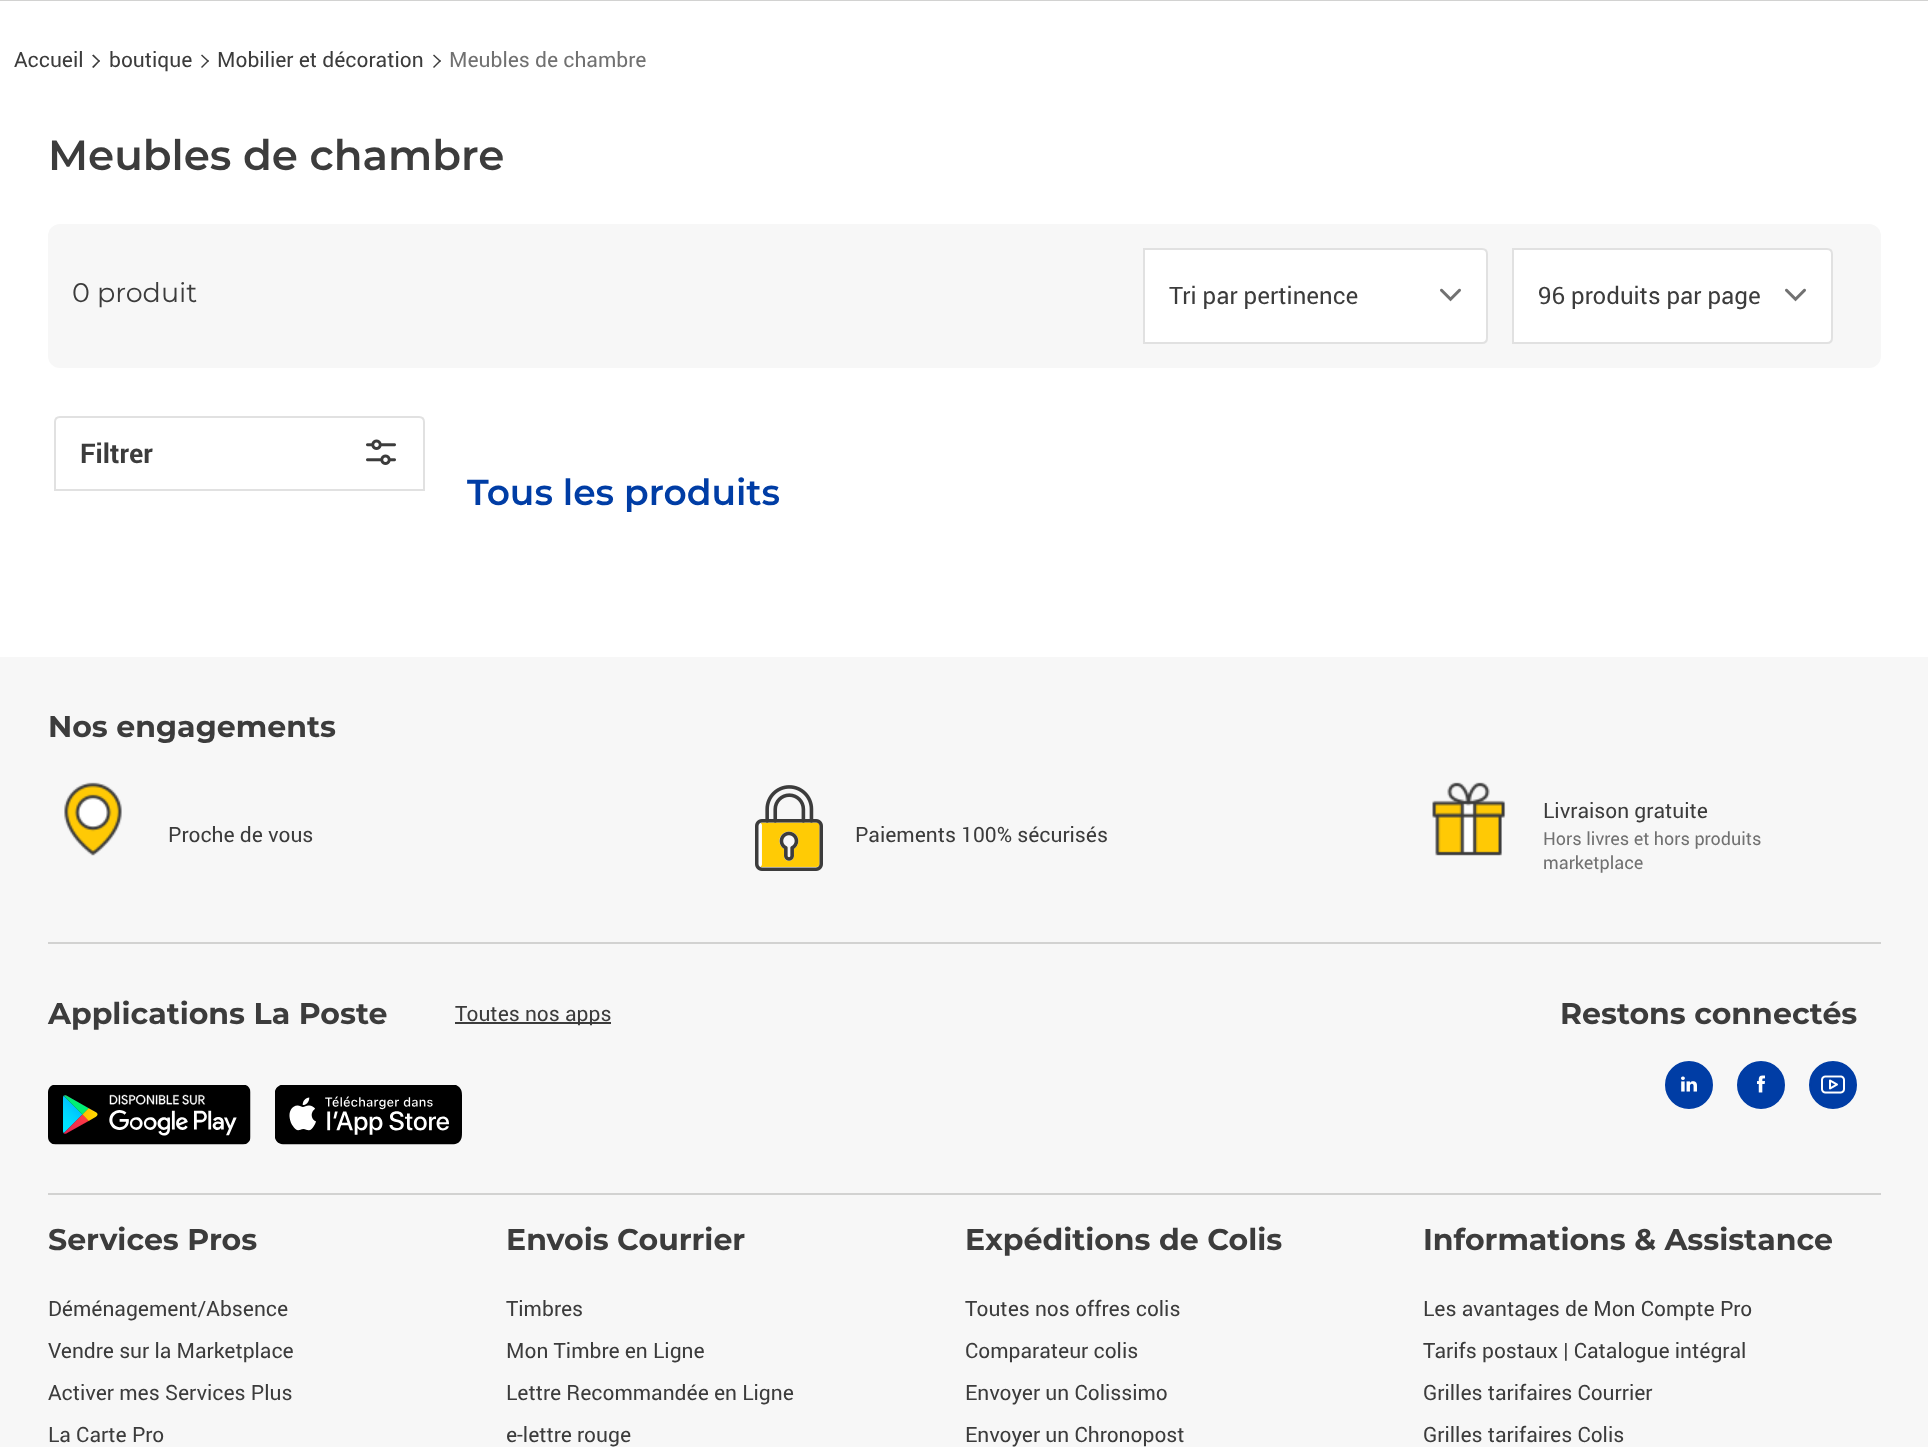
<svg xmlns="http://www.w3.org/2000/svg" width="1928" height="1447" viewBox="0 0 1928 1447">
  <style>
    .t1 { font: 21px Roboto; fill: #3c3c3c; }
    .t2 { font: 21px Roboto; fill: #717171; }
    .t3 { font: 600 42px Montserrat; fill: #3c3c3c; }
    .t4 { font: 27px Montserrat; fill: #3c3c3c; }
    .t5 { font: 24px Roboto; fill: #3c3c3c; }
    .t6 { font: bold 27px Roboto; fill: #3c3c3c; }
    .t7 { font: 600 36px Montserrat; fill: #003da5; }
    .t8 { font: bold 30px Montserrat; fill: #3c3c3c; }
    .t9 { font: 18px Roboto; fill: #717171; }
  </style>
  <rect width="100%" height="100%" fill="#fff"/>
  <rect x="0" y="0" width="1928" height="1" fill="#d2d2d1"/>
  <text x="14" y="67" class="t1">Accueil</text>
  <path d="M93.5 54.5L100 61L99 62L92 55.5Z" fill="#3c3c3c"/>
  <path d="M99 60L100 61L93.5 68L92 67Z" fill="#3c3c3c"/>
  <text x="109" y="67" class="t1">boutique</text>
  <path d="M202 54.5L209 61L208 62L201 55.5Z" fill="#3c3c3c"/>
  <path d="M208 60L209 61L202 68L201 67Z" fill="#3c3c3c"/>
  <text x="217" y="67" class="t1">Mobilier et décoration</text>
  <path d="M434 54.5L441 61L440 62L433 55.5Z" fill="#3c3c3c"/>
  <path d="M440 60L441 61L434 68L433 67Z" fill="#3c3c3c"/>
  <text x="449" y="67" class="t2">Meubles de chambre</text>
  <text x="48" y="170" class="t3">Meubles de chambre</text>
  <rect x="48" y="224" width="1833" height="144" rx="12" fill="#f7f7f7"/>
  <text x="72" y="302" class="t4">0 produit</text>
  <path d="M1144 249H1482C1485 249 1487 251 1487 254V338C1487 341 1485 343 1482 343H1144Z" fill="#fff" stroke="#e1e1e1" stroke-width="2"/>
  <text x="1169" y="304" class="t5">Tri par pertinence</text>
  <image x="1440" y="288" width="21" height="14" href="images/1.png"/>
  <path d="M1513 249H1827C1830 249 1832 251 1832 254V338C1832 341 1830 343 1827 343H1513Z" fill="#fff" stroke="#e1e1e1" stroke-width="2"/>
  <text x="1538" y="304" class="t5">96 produits par page</text>
  <image x="1785" y="288" width="21" height="14" href="images/1.png"/>
  <path d="M60 417H419C422 417 424 419 424 422V490H55V422C55 419 57 417 60 417Z" fill="none" stroke="#e1e1e1" stroke-width="2"/>
  <text x="80" y="463" class="t6">Filtrer</text>
  <image x="366" y="439" width="30" height="26" href="images/2.png"/>
  <text x="467" y="505" class="t7">Tous les produits</text>
  <rect x="0" y="657" width="1928" height="790" fill="#f7f7f7"/>
  <text x="48" y="737" class="t8">Nos engagements</text>
  <image x="64" y="782" width="58" height="74" href="images/3.png"/>
  <text x="168" y="842" class="t1">Proche de vous</text>
  <image x="755" y="785" width="68" height="86" href="images/4.png"/>
  <text x="855" y="842" class="t1">Paiements 100% sécurisés</text>
  <image x="1432" y="782" width="74" height="74" href="images/5.png"/>
  <text x="1543" y="818" class="t1">Livraison gratuite</text>
  <text x="1543" y="845" class="t9">Hors livres et hors produits</text>
  <text x="1543" y="869" class="t9">marketplace</text>
  <text x="48" y="1024" class="t8">Applications La Poste</text>
  <image x="48" y="1085" width="203" height="60" href="images/6.png"/>
  <image x="275" y="1085" width="187" height="60" href="images/7.png"/>
  <rect x="455" y="1022" width="156" height="2" fill="#3c3c3c"/>
  <text x="455" y="1021" class="t1">Toutes nos apps</text>
  <rect x="48" y="942" width="1833" height="2" fill="#d2d2d1"/>
  <text x="1560" y="1024" class="t8">Restons connectés</text>
  <circle cx="1689" cy="1085" r="23" fill="#003da5" stroke="#003da5" stroke-width="2"/>
  <image x="1681" y="1076" width="16" height="16" href="images/8.png"/>
  <circle cx="1761" cy="1085" r="23" fill="#003da5" stroke="#003da5" stroke-width="2"/>
  <image x="1757" y="1075" width="8" height="18" href="images/9.png"/>
  <circle cx="1833" cy="1085" r="23" fill="#003da5" stroke="#003da5" stroke-width="2"/>
  <image x="1821" y="1075" width="24" height="19" href="images/10.png"/>
  <rect x="48" y="1193" width="1833" height="2" fill="#d2d2d1"/>
  <text x="48" y="1250" class="t8">Services Pros</text>
  <text x="48" y="1316" class="t1">Déménagement/Absence</text>
  <text x="48" y="1358" class="t1">Vendre sur la Marketplace</text>
  <text x="48" y="1400" class="t1">Activer mes Services Plus</text>
  <text x="48" y="1442" class="t1">La Carte Pro</text>
  <text x="506" y="1250" class="t8">Envois Courrier</text>
  <text x="506" y="1316" class="t1">Timbres</text>
  <text x="506" y="1358" class="t1">Mon Timbre en Ligne</text>
  <text x="506" y="1400" class="t1">Lettre Recommandée en Ligne</text>
  <text x="506" y="1442" class="t1">e-lettre rouge</text>
  <text x="965" y="1250" class="t8">Expéditions de Colis</text>
  <text x="965" y="1316" class="t1">Toutes nos offres colis</text>
  <text x="965" y="1358" class="t1">Comparateur colis</text>
  <text x="965" y="1400" class="t1">Envoyer un Colissimo</text>
  <text x="965" y="1442" class="t1">Envoyer un Chronopost</text>
  <text x="1423" y="1250" class="t8">Informations &amp; Assistance</text>
  <text x="1423" y="1316" class="t1">Les avantages de Mon Compte Pro</text>
  <text x="1423" y="1358" class="t1">Tarifs postaux | Catalogue intégral</text>
  <text x="1423" y="1400" class="t1">Grilles tarifaires Courrier</text>
  <text x="1423" y="1442" class="t1">Grilles tarifaires Colis</text>
</svg>
